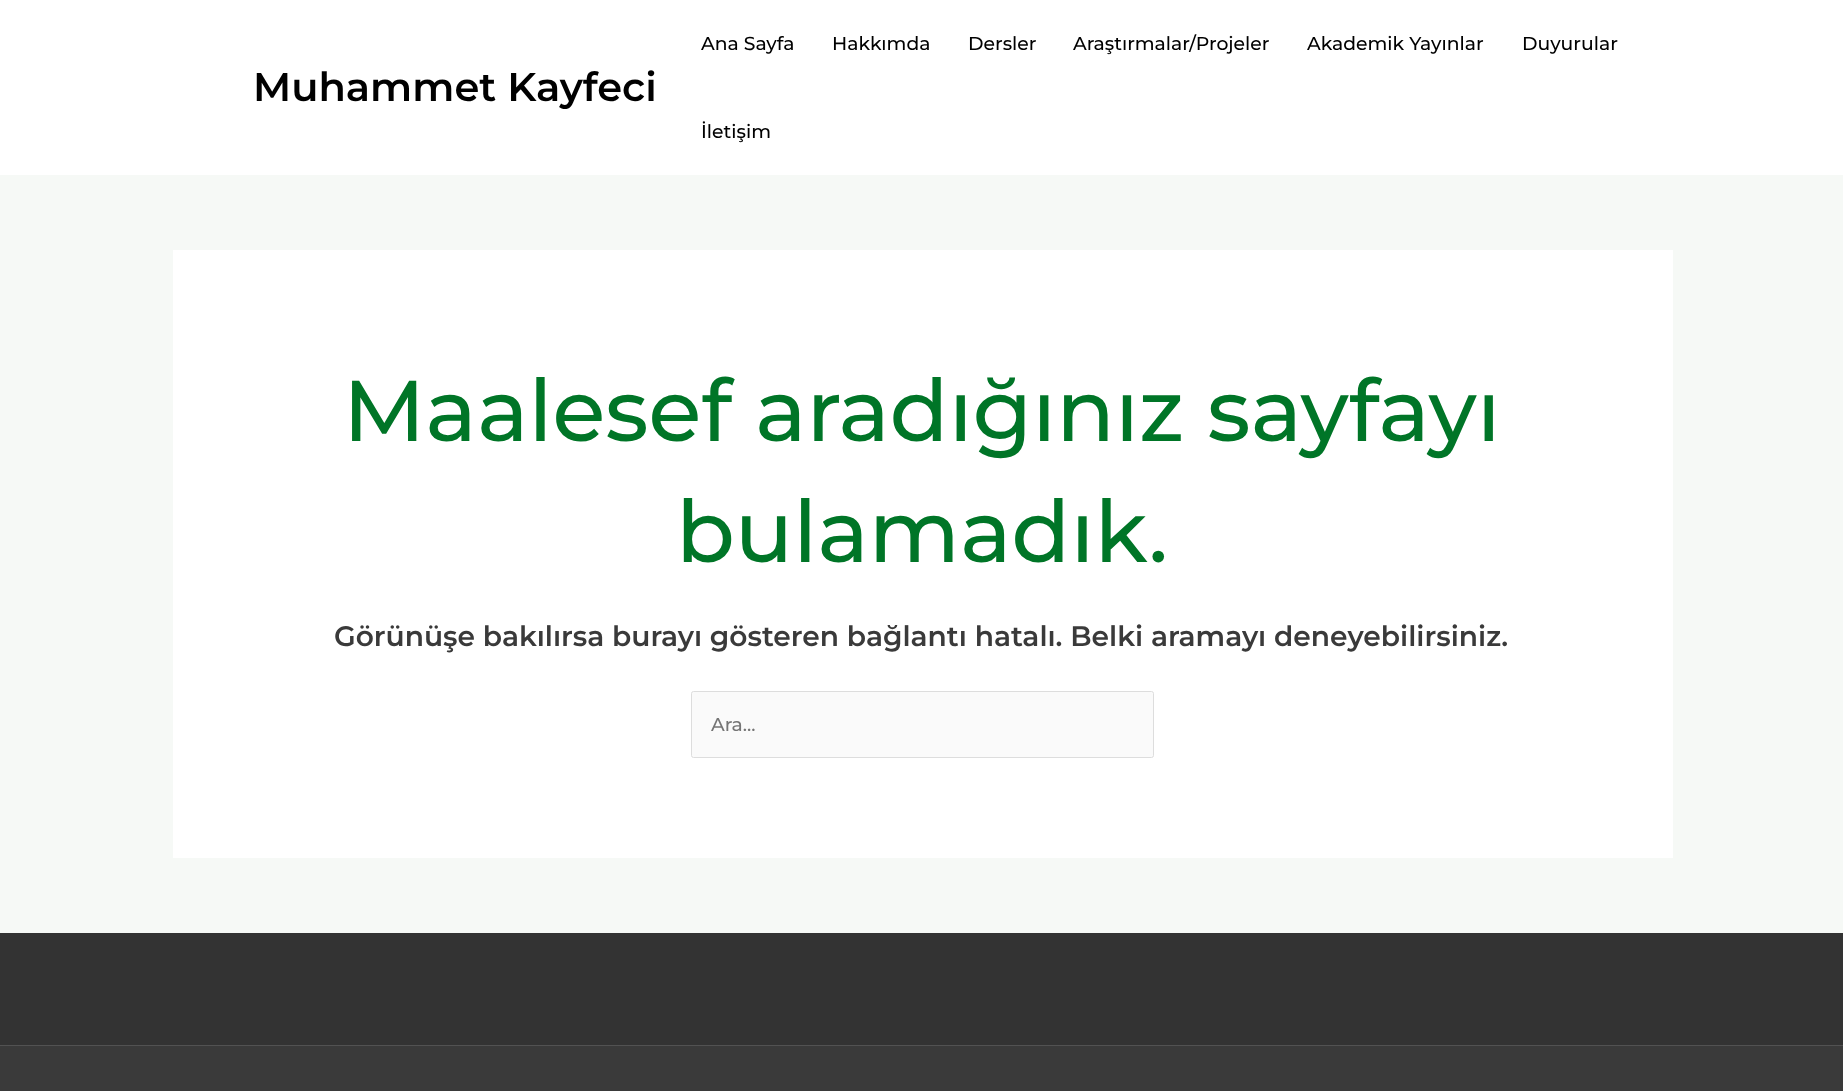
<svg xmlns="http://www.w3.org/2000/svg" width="1843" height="1091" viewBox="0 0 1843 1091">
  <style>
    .t1 { font: 600 40px Montserrat; fill: #000; }
    .t2 { font: 500 18.75px Montserrat; fill: #000; }
    .t3 { font: 500 86.25px Montserrat; fill: #007527; }
    .t4 { font: 600 28.1px Montserrat; fill: #3a3a3a; }
    .t5 { font: 500 18.75px Montserrat; fill: #757575; }
  </style>
  <rect width="100%" height="100%" fill="#f6f9f6"/>
  <rect x="0" y="0" width="1843" height="175" fill="#fff"/>
  <text x="253" y="101" class="t1">Muhammet Kayfeci</text>
  <text x="701" y="50" class="t2">Ana Sayfa</text>
  <text x="832" y="50" class="t2">Hakkımda</text>
  <text x="968" y="50" class="t2">Dersler</text>
  <text x="1073" y="50" class="t2">Araştırmalar/Projeler</text>
  <text x="1307" y="50" class="t2">Akademik Yayınlar</text>
  <text x="1522" y="50" class="t2">Duyurular</text>
  <text x="701" y="138" class="t2">İletişim</text>
  <rect x="173" y="250" width="1500" height="608" fill="#fff"/>
  <text x="343" y="441" class="t3">Maalesef aradığınız sayfayı</text>
  <text x="676" y="562" class="t3">bulamadık.</text>
  <text x="334" y="646" class="t4">Görünüşe bakılırsa burayı gösteren bağlantı hatalı. Belki aramayı deneyebilirsiniz.</text>
  <rect x="691.5" y="691.5" width="462" height="66" rx="2" fill="#fafafa" stroke="#ddd"/>
  <text x="711" y="731" class="t5">Ara...</text>
  <rect x="0" y="1046" width="1843" height="45" fill="#3a3a3a"/>
  <rect x="0" y="933" width="1843" height="112" fill="#333"/>
  <rect x="0" y="1045" width="1843" height="1" fill="#525252"/>
</svg>
